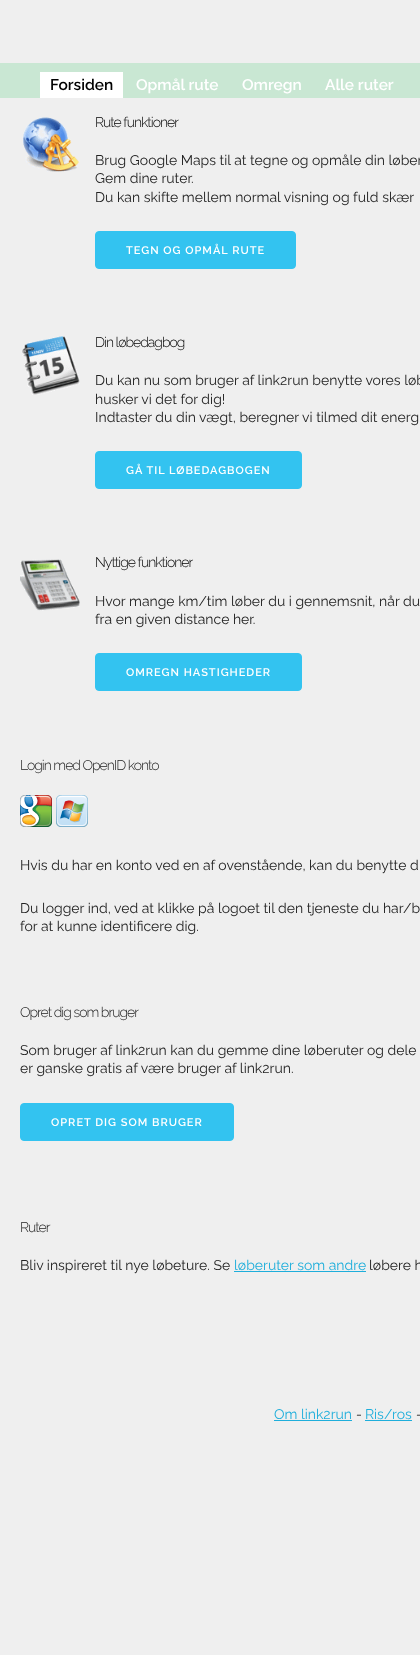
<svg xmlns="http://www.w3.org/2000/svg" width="420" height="1655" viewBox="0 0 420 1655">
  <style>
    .t1 { font: 600 15.5px Raleway; fill: #000; }
    .t2 { font: 600 15.5px Raleway; fill: #fff; }
    .t3 { font: 300 14px Raleway; letter-spacing: -1px; fill: #000; }
    .t4 { font: 14px Raleway; fill: #222; }
    .t5 { font: 600 11px Raleway; letter-spacing: 1px; fill: #fff; }
    .t6 { font: 300 14px Raleway; letter-spacing: -1px; fill: #222; }
    .t7 { font: 14px Raleway; fill: #1eaedb; }
  </style>
  <rect width="100%" height="100%" fill="#efefef"/>
  <rect x="0" y="63" width="420" height="35" fill="#c9e7d3"/>
  <rect x="40" y="72" width="83" height="26" fill="#fff"/>
  <text x="50" y="90" class="t1">Forsiden</text>
  <text x="136" y="90" class="t2">Opmål rute</text>
  <text x="242" y="90" class="t2">Omregn</text>
  <text x="325" y="90" class="t2">Alle ruter</text>
  <image x="22" y="117" width="58" height="55" href="images/1.png"/>
  <text x="95" y="127" class="t3">Rute funktioner</text>
  <text x="95" y="165" class="t4">Brug Google Maps til at tegne og opmåle din løber</text>
  <text x="95" y="183" class="t4">Gem dine ruter.</text>
  <text x="95" y="202" class="t4">Du kan skifte mellem normal visning og fuld skær</text>
  <rect x="95.5" y="231.5" width="200" height="37" rx="3.5" fill="#33c3f0" stroke="#33c3f0"/>
  <text x="126" y="254" class="t5">TEGN OG OPMÅL RUTE</text>
  <image x="22" y="335" width="58" height="60" href="images/2.png"/>
  <text x="95" y="347" class="t3">Din løbedagbog</text>
  <text x="95" y="385" class="t4">Du kan nu som bruger af link2run benytte vores løb</text>
  <text x="95" y="404" class="t4">husker vi det for dig!</text>
  <text x="95" y="422" class="t4">Indtaster du din vægt, beregner vi tilmed dit energ</text>
  <rect x="95.5" y="451.5" width="206" height="37" rx="3.5" fill="#33c3f0" stroke="#33c3f0"/>
  <text x="126" y="474" class="t5">GÅ TIL LØBEDAGBOGEN</text>
  <image x="20" y="559" width="60" height="52" href="images/3.png"/>
  <text x="95" y="567" class="t3">Nyttige funktioner</text>
  <text x="95" y="606" class="t4">Hvor mange km/tim løber du i gennemsnit, når du</text>
  <text x="95" y="624" class="t4">fra en given distance her.</text>
  <rect x="95.5" y="653.5" width="206" height="37" rx="3.5" fill="#33c3f0" stroke="#33c3f0"/>
  <text x="126" y="676" class="t5">OMREGN HASTIGHEDER</text>
  <text x="20" y="770" class="t6">Login med OpenID konto</text>
  <image x="20" y="795" width="32" height="32" href="images/4.png"/>
  <image x="56" y="795" width="32" height="32" href="images/5.png"/>
  <text x="20" y="870" class="t4">Hvis du har en konto ved en af ovenstående, kan du benytte d</text>
  <text x="20" y="913" class="t4">Du logger ind, ved at klikke på logoet til den tjeneste du har/b</text>
  <text x="20" y="931" class="t4">for at kunne identificere dig.</text>
  <text x="20" y="1017" class="t6">Opret dig som bruger</text>
  <text x="20" y="1055" class="t4">Som bruger af link2run kan du gemme dine løberuter og dele</text>
  <text x="20" y="1073" class="t4">er ganske gratis af være bruger af link2run.</text>
  <rect x="20.5" y="1103.5" width="213" height="37" rx="3.5" fill="#33c3f0" stroke="#33c3f0"/>
  <text x="51" y="1126" class="t5">OPRET DIG SOM BRUGER</text>
  <text x="20" y="1232" class="t6">Ruter</text>
  <text x="20" y="1270" class="t4">Bliv inspireret til nye løbeture. Se</text>
  <text x="234" y="1270" class="t7">løberuter som andre</text>
  <rect x="234" y="1271" width="132" height="1" fill="#1eaedb"/>
  <text x="369" y="1270" class="t4">løbere h</text>
  <text x="274" y="1419" class="t7">Om link2run</text>
  <rect x="274" y="1420" width="78" height="1" fill="#1eaedb"/>
  <text x="356" y="1419" class="t4">-</text>
  <text x="365" y="1419" class="t7">Ris/ros</text>
  <rect x="365" y="1420" width="47" height="1" fill="#1eaedb"/>
  <text x="416" y="1419" class="t4">-</text>
</svg>
